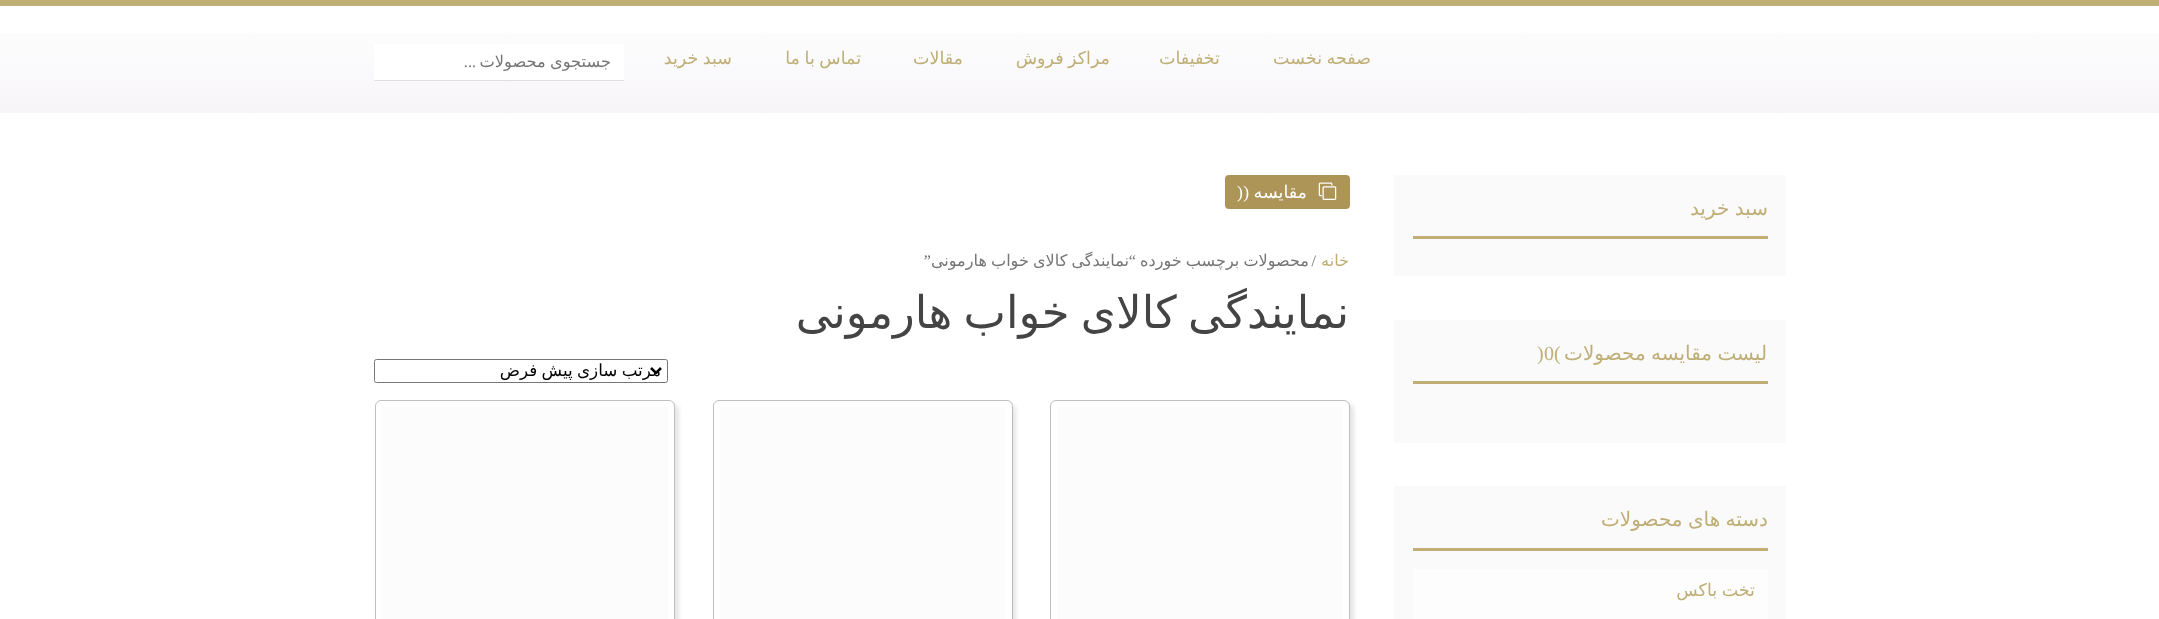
<svg xmlns="http://www.w3.org/2000/svg" width="2159" height="619" viewBox="0 0 2159 619">
  <style>
    .t1 { font: 17.5px DejaVu Sans; direction: rtl; fill: #bfae76; }
    .t2 { font: 16.25px DejaVu Sans; direction: rtl; fill: #757575; }
    .t3 { font: 16.25px Liberation Serif; direction: rtl; fill: #757575; }
    .t4 { font: 20px DejaVu Sans; direction: rtl; fill: #bfae76; }
    .t5 { font: 20px Liberation Serif; fill: #bfae76; }
    .t6 { font: 17.5px DejaVu Sans; direction: rtl; fill: #fff; }
    .t7 { font: 17.5px Liberation Serif; direction: rtl; fill: #fff; }
    .t8 { font: 17.5px Liberation Serif; fill: #fff; }
    .t9 { font: 16.1px DejaVu Sans; direction: rtl; fill: #bfae76; }
    .t10 { font: 16.1px Liberation Serif; direction: rtl; fill: #757575; }
    .t11 { font: 16.1px DejaVu Sans; direction: rtl; fill: #757575; }
    .t12 { font: 45px DejaVu Sans; direction: rtl; fill: #444; }
    .t13 { font: 16.75px DejaVu Sans; direction: rtl; fill: #000; }
  </style>
  <defs>
    <linearGradient id="g1" gradientUnits="userSpaceOnUse" x1="1080" y1="6.2" x2="1080" y2="113"><stop offset="0" stop-color="#fff"/><stop offset="1" stop-color="#f7f5f8"/></linearGradient>
  </defs>
  <rect width="100%" height="100%" fill="#fff"/>
  <rect x="0" y="33" width="2159" height="80" fill="url(#g1)"/>
  <rect x="0" y="0" width="2159" height="6" fill="#bfae76"/>
  <text x="1371" y="64" word-spacing="-1" class="t1">صفحه نخست</text>
  <text x="1220" y="64" class="t1">تخفیفات</text>
  <text x="1110" y="64" word-spacing="-1" class="t1">مراکز فروش</text>
  <text x="963" y="64" class="t1">مقالات</text>
  <text x="861" y="64" word-spacing="-1" class="t1">تماس با ما</text>
  <text x="732" y="64" word-spacing="-1" class="t1">سبد خرید</text>
  <rect x="374" y="44" width="250" height="36" fill="#fff"/>
  <rect x="374" y="80" width="250" height="1" fill="#e1dfe1"/>
  <text x="611" y="67" word-spacing="-1" class="t2">جستجوی محصولات</text>
  <text x="476" y="67" class="t3">...</text>
  <rect x="1394" y="175" width="392" height="101" fill="#fafafa"/>
  <rect x="1413" y="236" width="355" height="3" fill="#bfae76"/>
  <text x="1768" y="215" word-spacing="-1" class="t4">سبد خرید</text>
  <rect x="1394" y="320" width="392" height="123" fill="#fafafa"/>
  <rect x="1413" y="381" width="355" height="3" fill="#bfae76"/>
  <text x="1767" y="360" word-spacing="-1" class="t4">لیست مقایسه محصولات</text>
  <text x="1554" y="360" class="t5">(</text>
  <text x="1544" y="360" class="t5">0</text>
  <text x="1537" y="360" class="t5">)</text>
  <rect x="1394" y="486" width="392" height="133" fill="#fafafa"/>
  <rect x="1413" y="548" width="355" height="3" fill="#bfae76"/>
  <text x="1768" y="526" word-spacing="-1" class="t4">دسته های محصولات</text>
  <rect x="1413" y="569" width="355" height="50" fill="#fdfdfd"/>
  <text x="1755" y="596" word-spacing="-1" class="t1">تخت باکس</text>
  <rect x="1225" y="175" width="125" height="34" rx="4" fill="#ac9557"/>
  <image x="1318" y="182" width="19" height="18" href="images/1.png"/>
  <text x="1307" y="198" class="t6">مقایسه</text>
  <text x="1249" y="198" class="t7">(</text>
  <text x="1237" y="198" class="t8">)</text>
  <text x="1349" y="266" class="t9">خانه</text>
  <text x="1316" y="266" class="t10">/</text>
  <text x="1309" y="266" word-spacing="-1" class="t11">محصولات برچسب خورده</text>
  <text x="1136" y="266" class="t10">“</text>
  <text x="1129" y="266" word-spacing="-1" class="t11">نمایندگی کالای خواب هارمونی</text>
  <text x="931" y="266" class="t10">”</text>
  <text x="1349" y="328" word-spacing="-3" class="t12">نمایندگی کالای خواب هارمونی</text>
  <rect x="374.5" y="359.5" width="293" height="23" rx="2" fill="none" stroke="#767676"/>
  <path d="M651 368L656 373L661 368" fill="none" stroke="#000" stroke-width="2.5"/>
  <text x="661" y="376" word-spacing="-1" class="t13">مرتب سازی پیش فرض</text>
  <rect x="1054" y="404" width="300" height="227" rx="6" fill="#0000001a" filter="blur(2px)"/>
  <rect x="1050" y="400" width="300" height="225" rx="6" fill="#fcfcfc"/>
  <rect x="1054" y="404" width="292" height="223" rx="2" fill="none" stroke="#fff" stroke-width="6"/>
  <rect x="1050.5" y="400.5" width="299" height="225" rx="5.5" fill="none" stroke="#bfbfbf"/>
  <rect x="716" y="404" width="300" height="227" rx="6" fill="#0000001a" filter="blur(2px)"/>
  <rect x="713" y="400" width="300" height="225" rx="6" fill="#fcfcfc"/>
  <rect x="717" y="404" width="291" height="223" rx="2" fill="none" stroke="#fff" stroke-width="6"/>
  <rect x="713.5" y="400.5" width="299" height="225" rx="5.5" fill="none" stroke="#bfbfbf"/>
  <rect x="379" y="404" width="300" height="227" rx="6" fill="#0000001a" filter="blur(2px)"/>
  <rect x="375" y="400" width="300" height="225" rx="6" fill="#fcfcfc"/>
  <rect x="379" y="404" width="292" height="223" rx="2" fill="none" stroke="#fff" stroke-width="6"/>
  <rect x="375.5" y="400.5" width="299" height="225" rx="5.5" fill="none" stroke="#bfbfbf"/>
</svg>
